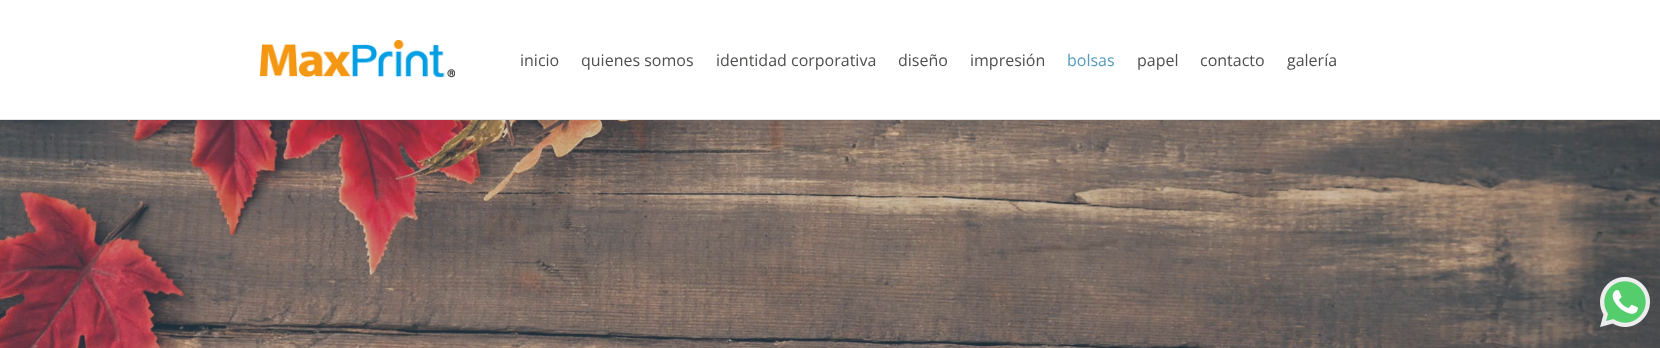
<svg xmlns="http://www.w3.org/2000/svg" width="1660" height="348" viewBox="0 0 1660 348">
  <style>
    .t1 { font: 16px Open Sans; fill: #4f4f4e; }
    .t2 { font: 16px Open Sans; fill: #569abd; }
  </style>
  <rect width="100%" height="100%" fill="#fff"/>
  <image x="260" y="40" width="195" height="38" href="images/1.png"/>
  <text x="520" y="66" class="t1">inicio</text>
  <text x="581" y="66" class="t1">quienes somos</text>
  <text x="716" y="66" class="t1">identidad corporativa</text>
  <text x="898" y="66" class="t1">diseño</text>
  <text x="970" y="66" class="t1">impresión</text>
  <text x="1067" y="66" class="t2">bolsas</text>
  <text x="1137" y="66" class="t1">papel</text>
  <text x="1200" y="66" class="t1">contacto</text>
  <text x="1287" y="66" class="t1">galería</text>
  <rect x="0" y="119" width="1660" height="1" fill="#e5e5e5"/>
  <image x="0" y="120" width="1660" height="228" href="images/2.png"/>
  <image x="1600" y="277" width="50" height="50" href="images/3.png"/>
</svg>
